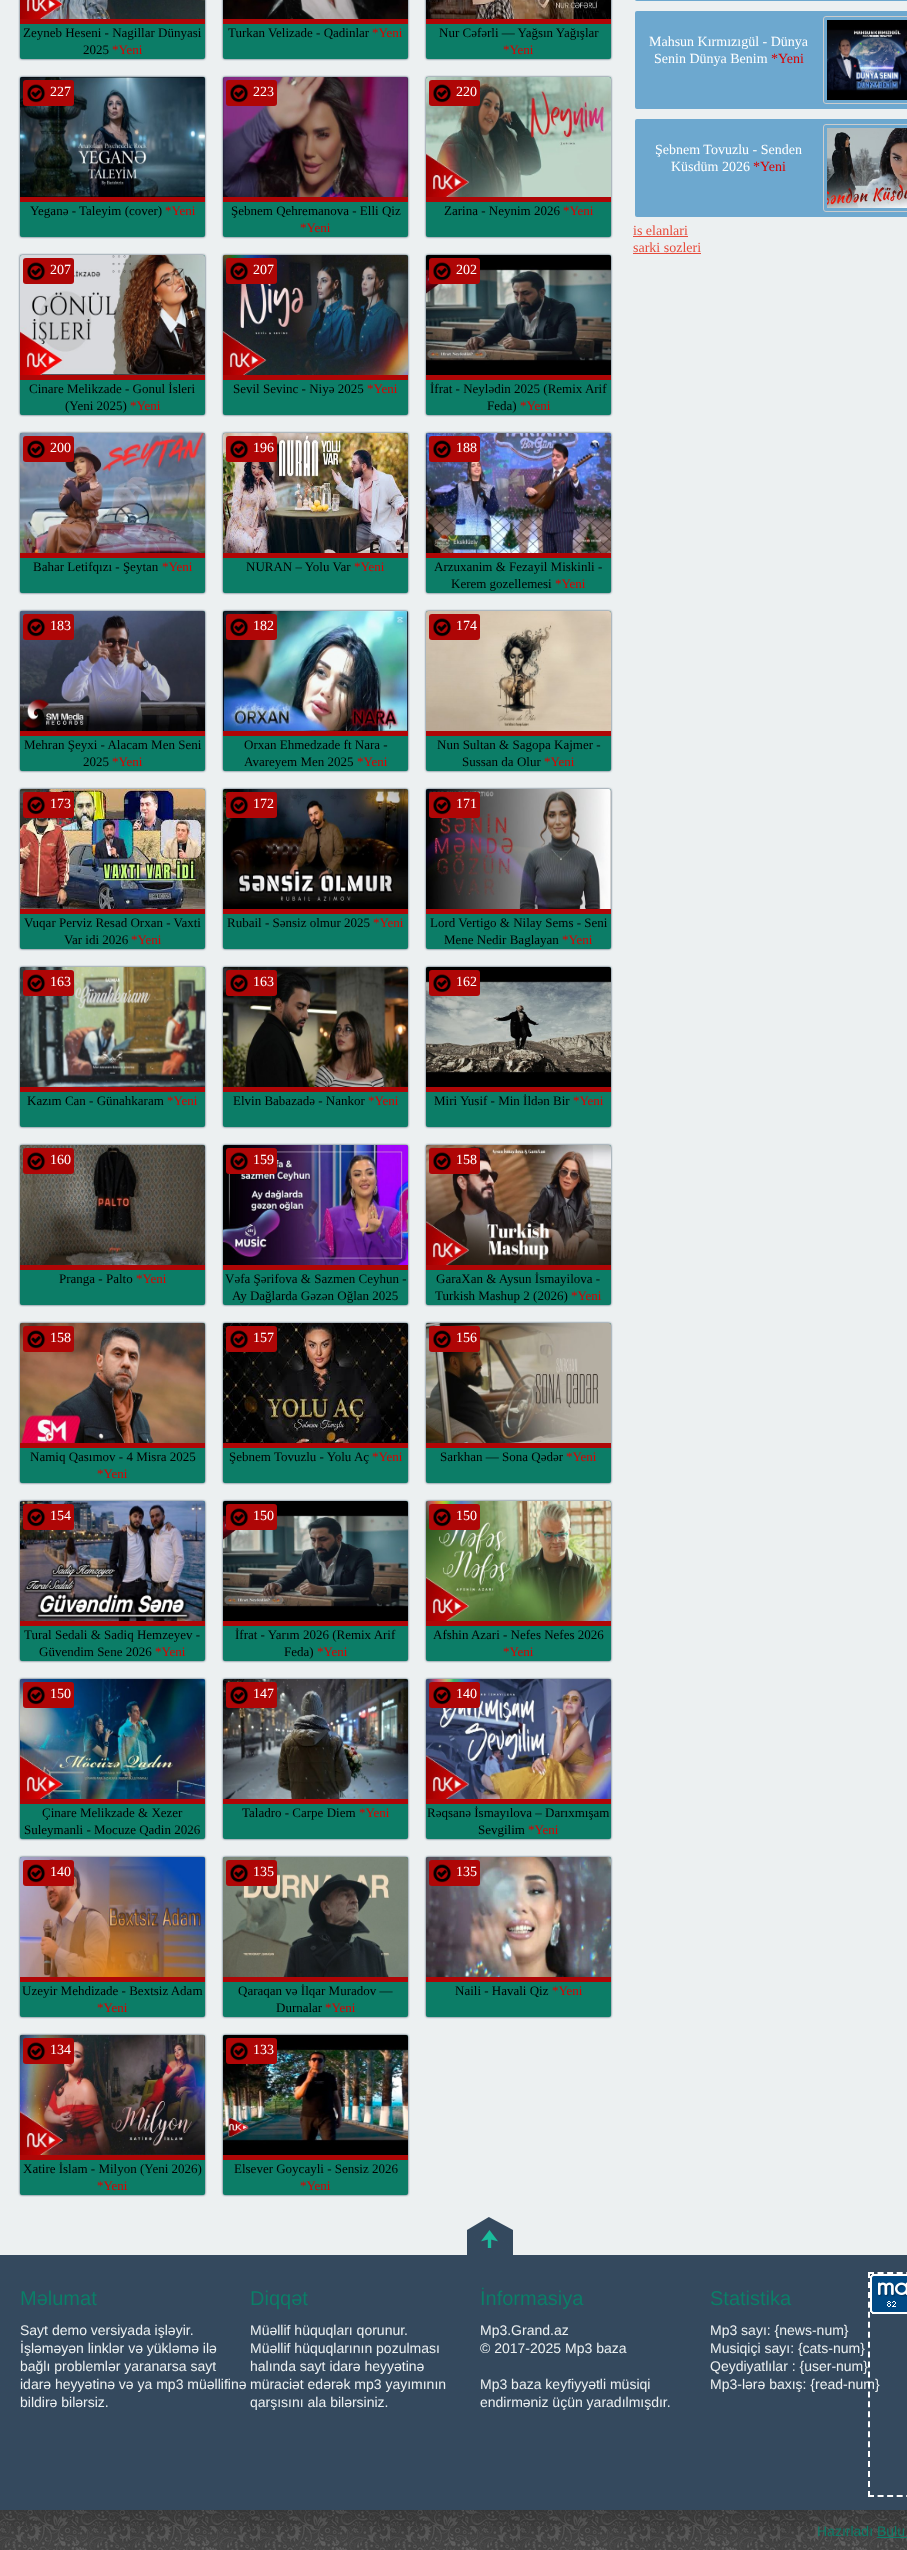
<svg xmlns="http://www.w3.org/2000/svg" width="907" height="2550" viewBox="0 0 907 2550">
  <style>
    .t1 { font: 13px Liberation Serif; fill: #000; }
    .t2 { font: 13px Liberation Serif; fill: #dc0000; }
    .t3 { font: 14px Liberation Serif; fill: #fff; }
    .t4 { font: 14px Liberation Serif; fill: #dc0000; }
    .t5 { font: 14px Liberation Serif; fill: #e74c3c; }
    .t6 { font: 20px Liberation Sans; fill: #0c7d67; }
    .t7 { font: 14px Liberation Sans; fill: #ecf0f1; }
    .t8 { font: 14px Liberation Sans; fill: #0c7d67; }
  </style>
  <rect width="100%" height="100%" fill="#fff"/>
  <image x="0" y="2510" width="907" height="40" href="images/1.png"/>
  <rect x="0" y="-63" width="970" height="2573" rx="3" fill="#0000004d" filter="blur(20px)"/>
  <rect x="0" y="0" width="907" height="2255" fill="#ecf0f1"/>
  <rect x="20" y="-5" width="185" height="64" rx="2" fill="#34495e" filter="blur(1px)"/>
  <rect x="20" y="-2" width="185" height="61" rx="2" fill="#0c7d67"/>
  <image x="20" y="0" width="185" height="19" href="images/2.png"/>
  <rect x="20" y="19" width="185" height="5" fill="#af0606"/>
  <text x="23" y="37" class="t1">Zeyneb Heseni - Nagillar Dünyasi</text>
  <text x="83" y="54" class="t1">2025</text>
  <text x="112" y="54" class="t2">*Yeni</text>
  <rect x="223" y="-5" width="185" height="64" rx="2" fill="#34495e" filter="blur(1px)"/>
  <rect x="223" y="-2" width="185" height="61" rx="2" fill="#0c7d67"/>
  <image x="223" y="0" width="185" height="19" href="images/3.png"/>
  <rect x="223" y="19" width="185" height="5" fill="#af0606"/>
  <text x="228" y="37" class="t1">Turkan Velizade - Qadinlar</text>
  <text x="372" y="37" class="t2">*Yeni</text>
  <rect x="426" y="-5" width="185" height="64" rx="2" fill="#34495e" filter="blur(1px)"/>
  <rect x="426" y="-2" width="185" height="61" rx="2" fill="#0c7d67"/>
  <image x="426" y="0" width="185" height="19" href="images/4.png"/>
  <rect x="426" y="19" width="185" height="5" fill="#af0606"/>
  <text x="439" y="37" class="t1">Nur Cəfərli — Yağsın Yağışlar</text>
  <text x="503" y="54" class="t2">*Yeni</text>
  <rect x="20" y="77" width="185" height="160" rx="2" fill="#34495e" filter="blur(1px)"/>
  <rect x="20" y="77" width="185" height="160" rx="2" fill="#0c7d67"/>
  <image x="20" y="77" width="185" height="120" href="images/5.png"/>
  <rect x="20" y="197" width="185" height="5" fill="#af0606"/>
  <rect x="23" y="80" width="51" height="26" rx="3" fill="#af0606"/>
  <image x="27" y="84" width="19" height="19" href="images/6.png"/>
  <text x="50" y="96" class="t3">227</text>
  <text x="30" y="215" class="t1">Yeganə - Taleyim (cover)</text>
  <text x="165" y="215" class="t2">*Yeni</text>
  <rect x="223" y="77" width="185" height="160" rx="2" fill="#34495e" filter="blur(1px)"/>
  <rect x="223" y="77" width="185" height="160" rx="2" fill="#0c7d67"/>
  <image x="223" y="77" width="185" height="120" href="images/7.png"/>
  <rect x="223" y="197" width="185" height="5" fill="#af0606"/>
  <rect x="226" y="80" width="51" height="26" rx="3" fill="#af0606"/>
  <image x="230" y="84" width="19" height="19" href="images/6.png"/>
  <text x="253" y="96" class="t3">223</text>
  <text x="231" y="215" class="t1">Şebnem Qehremanova - Elli Qiz</text>
  <text x="300" y="232" class="t2">*Yeni</text>
  <rect x="426" y="77" width="185" height="160" rx="2" fill="#34495e" filter="blur(1px)"/>
  <rect x="426" y="77" width="185" height="160" rx="2" fill="#0c7d67"/>
  <image x="426" y="77" width="185" height="120" href="images/8.png"/>
  <rect x="426" y="197" width="185" height="5" fill="#af0606"/>
  <rect x="429" y="80" width="51" height="26" rx="3" fill="#af0606"/>
  <image x="433" y="84" width="19" height="19" href="images/6.png"/>
  <text x="456" y="96" class="t3">220</text>
  <text x="444" y="215" class="t1">Zarina - Neynim 2026</text>
  <text x="563" y="215" class="t2">*Yeni</text>
  <rect x="20" y="255" width="185" height="160" rx="2" fill="#34495e" filter="blur(1px)"/>
  <rect x="20" y="255" width="185" height="160" rx="2" fill="#0c7d67"/>
  <image x="20" y="255" width="185" height="120" href="images/9.png"/>
  <rect x="20" y="375" width="185" height="5" fill="#af0606"/>
  <rect x="23" y="258" width="51" height="26" rx="3" fill="#af0606"/>
  <image x="27" y="262" width="19" height="19" href="images/6.png"/>
  <text x="50" y="274" class="t3">207</text>
  <text x="29" y="393" class="t1">Cinare Melikzade - Gonul İsleri</text>
  <text x="65" y="410" class="t1">(Yeni 2025)</text>
  <text x="130" y="410" class="t2">*Yeni</text>
  <rect x="223" y="255" width="185" height="160" rx="2" fill="#34495e" filter="blur(1px)"/>
  <rect x="223" y="255" width="185" height="160" rx="2" fill="#0c7d67"/>
  <image x="223" y="255" width="185" height="120" href="images/10.png"/>
  <rect x="223" y="375" width="185" height="5" fill="#af0606"/>
  <rect x="226" y="258" width="51" height="26" rx="3" fill="#af0606"/>
  <image x="230" y="262" width="19" height="19" href="images/6.png"/>
  <text x="253" y="274" class="t3">207</text>
  <text x="233" y="393" class="t1">Sevil Sevinc - Niyə 2025</text>
  <text x="367" y="393" class="t2">*Yeni</text>
  <rect x="426" y="255" width="185" height="160" rx="2" fill="#34495e" filter="blur(1px)"/>
  <rect x="426" y="255" width="185" height="160" rx="2" fill="#0c7d67"/>
  <image x="426" y="255" width="185" height="120" href="images/11.png"/>
  <rect x="426" y="375" width="185" height="5" fill="#af0606"/>
  <rect x="429" y="258" width="51" height="26" rx="3" fill="#af0606"/>
  <image x="433" y="262" width="19" height="19" href="images/6.png"/>
  <text x="456" y="274" class="t3">202</text>
  <text x="430" y="393" class="t1">İfrat - Neylədin 2025 (Remix Arif</text>
  <text x="487" y="410" class="t1">Feda)</text>
  <text x="520" y="410" class="t2">*Yeni</text>
  <rect x="20" y="433" width="185" height="160" rx="2" fill="#34495e" filter="blur(1px)"/>
  <rect x="20" y="433" width="185" height="160" rx="2" fill="#0c7d67"/>
  <image x="20" y="433" width="185" height="120" href="images/12.png"/>
  <rect x="20" y="553" width="185" height="5" fill="#af0606"/>
  <rect x="23" y="436" width="51" height="26" rx="3" fill="#af0606"/>
  <image x="27" y="440" width="19" height="19" href="images/6.png"/>
  <text x="50" y="452" class="t3">200</text>
  <text x="33" y="571" class="t1">Bahar Letifqızı - Şeytan</text>
  <text x="162" y="571" class="t2">*Yeni</text>
  <rect x="223" y="433" width="185" height="160" rx="2" fill="#34495e" filter="blur(1px)"/>
  <rect x="223" y="433" width="185" height="160" rx="2" fill="#0c7d67"/>
  <image x="223" y="433" width="185" height="120" href="images/13.png"/>
  <rect x="223" y="553" width="185" height="5" fill="#af0606"/>
  <rect x="226" y="436" width="51" height="26" rx="3" fill="#af0606"/>
  <image x="230" y="440" width="19" height="19" href="images/6.png"/>
  <text x="253" y="452" class="t3">196</text>
  <text x="246" y="571" class="t1">NURAN – Yolu Var</text>
  <text x="354" y="571" class="t2">*Yeni</text>
  <rect x="426" y="433" width="185" height="160" rx="2" fill="#34495e" filter="blur(1px)"/>
  <rect x="426" y="433" width="185" height="160" rx="2" fill="#0c7d67"/>
  <image x="426" y="433" width="185" height="120" href="images/14.png"/>
  <rect x="426" y="553" width="185" height="5" fill="#af0606"/>
  <rect x="429" y="436" width="51" height="26" rx="3" fill="#af0606"/>
  <image x="433" y="440" width="19" height="19" href="images/6.png"/>
  <text x="456" y="452" class="t3">188</text>
  <text x="434" y="571" class="t1">Arzuxanim &amp; Fezayil Miskinli -</text>
  <text x="451" y="588" class="t1">Kerem gozellemesi</text>
  <text x="555" y="588" class="t2">*Yeni</text>
  <rect x="20" y="611" width="185" height="160" rx="2" fill="#34495e" filter="blur(1px)"/>
  <rect x="20" y="611" width="185" height="160" rx="2" fill="#0c7d67"/>
  <image x="20" y="611" width="185" height="120" href="images/15.png"/>
  <rect x="20" y="731" width="185" height="5" fill="#af0606"/>
  <rect x="23" y="614" width="51" height="26" rx="3" fill="#af0606"/>
  <image x="27" y="618" width="19" height="19" href="images/6.png"/>
  <text x="50" y="630" class="t3">183</text>
  <text x="24" y="749" class="t1">Mehran Şeyxi - Alacam Men Seni</text>
  <text x="83" y="766" class="t1">2025</text>
  <text x="112" y="766" class="t2">*Yeni</text>
  <rect x="223" y="611" width="185" height="160" rx="2" fill="#34495e" filter="blur(1px)"/>
  <rect x="223" y="611" width="185" height="160" rx="2" fill="#0c7d67"/>
  <image x="223" y="611" width="185" height="120" href="images/16.png"/>
  <rect x="223" y="731" width="185" height="5" fill="#af0606"/>
  <rect x="226" y="614" width="51" height="26" rx="3" fill="#af0606"/>
  <image x="230" y="618" width="19" height="19" href="images/6.png"/>
  <text x="253" y="630" class="t3">182</text>
  <text x="244" y="749" class="t1">Orxan Ehmedzade ft Nara -</text>
  <text x="244" y="766" class="t1">Avareyem Men 2025</text>
  <text x="357" y="766" class="t2">*Yeni</text>
  <rect x="426" y="611" width="185" height="160" rx="2" fill="#34495e" filter="blur(1px)"/>
  <rect x="426" y="611" width="185" height="160" rx="2" fill="#0c7d67"/>
  <image x="426" y="611" width="185" height="120" href="images/17.png"/>
  <rect x="426" y="731" width="185" height="5" fill="#af0606"/>
  <rect x="429" y="614" width="51" height="26" rx="3" fill="#af0606"/>
  <image x="433" y="618" width="19" height="19" href="images/6.png"/>
  <text x="456" y="630" class="t3">174</text>
  <text x="437" y="749" class="t1">Nun Sultan &amp; Sagopa Kajmer -</text>
  <text x="462" y="766" class="t1">Sussan da Olur</text>
  <text x="544" y="766" class="t2">*Yeni</text>
  <rect x="20" y="789" width="185" height="160" rx="2" fill="#34495e" filter="blur(1px)"/>
  <rect x="20" y="789" width="185" height="160" rx="2" fill="#0c7d67"/>
  <image x="20" y="789" width="185" height="120" href="images/18.png"/>
  <rect x="20" y="909" width="185" height="5" fill="#af0606"/>
  <rect x="23" y="792" width="51" height="26" rx="3" fill="#af0606"/>
  <image x="27" y="796" width="19" height="19" href="images/6.png"/>
  <text x="50" y="808" class="t3">173</text>
  <text x="24" y="927" class="t1">Vuqar Perviz Resad Orxan - Vaxti</text>
  <text x="64" y="944" class="t1">Var idi 2026</text>
  <text x="131" y="944" class="t2">*Yeni</text>
  <rect x="223" y="789" width="185" height="160" rx="2" fill="#34495e" filter="blur(1px)"/>
  <rect x="223" y="789" width="185" height="160" rx="2" fill="#0c7d67"/>
  <image x="223" y="789" width="185" height="120" href="images/19.png"/>
  <rect x="223" y="909" width="185" height="5" fill="#af0606"/>
  <rect x="226" y="792" width="51" height="26" rx="3" fill="#af0606"/>
  <image x="230" y="796" width="19" height="19" href="images/6.png"/>
  <text x="253" y="808" class="t3">172</text>
  <text x="227" y="927" class="t1">Rubail - Sənsiz olmur 2025</text>
  <text x="373" y="927" class="t2">*Yeni</text>
  <rect x="426" y="789" width="185" height="160" rx="2" fill="#34495e" filter="blur(1px)"/>
  <rect x="426" y="789" width="185" height="160" rx="2" fill="#0c7d67"/>
  <image x="426" y="789" width="185" height="120" href="images/20.png"/>
  <rect x="426" y="909" width="185" height="5" fill="#af0606"/>
  <rect x="429" y="792" width="51" height="26" rx="3" fill="#af0606"/>
  <image x="433" y="796" width="19" height="19" href="images/6.png"/>
  <text x="456" y="808" class="t3">171</text>
  <text x="430" y="927" class="t1">Lord Vertigo &amp; Nilay Sems - Seni</text>
  <text x="444" y="944" class="t1">Mene Nedir Baglayan</text>
  <text x="562" y="944" class="t2">*Yeni</text>
  <rect x="20" y="967" width="185" height="160" rx="2" fill="#34495e" filter="blur(1px)"/>
  <rect x="20" y="967" width="185" height="160" rx="2" fill="#0c7d67"/>
  <image x="20" y="967" width="185" height="120" href="images/21.png"/>
  <rect x="20" y="1087" width="185" height="5" fill="#af0606"/>
  <rect x="23" y="970" width="51" height="26" rx="3" fill="#af0606"/>
  <image x="27" y="974" width="19" height="19" href="images/6.png"/>
  <text x="50" y="986" class="t3">163</text>
  <text x="27" y="1105" class="t1">Kazım Can - Günahkaram</text>
  <text x="167" y="1105" class="t2">*Yeni</text>
  <rect x="223" y="967" width="185" height="160" rx="2" fill="#34495e" filter="blur(1px)"/>
  <rect x="223" y="967" width="185" height="160" rx="2" fill="#0c7d67"/>
  <image x="223" y="967" width="185" height="120" href="images/22.png"/>
  <rect x="223" y="1087" width="185" height="5" fill="#af0606"/>
  <rect x="226" y="970" width="51" height="26" rx="3" fill="#af0606"/>
  <image x="230" y="974" width="19" height="19" href="images/6.png"/>
  <text x="253" y="986" class="t3">163</text>
  <text x="233" y="1105" class="t1">Elvin Babazadə - Nankor</text>
  <text x="368" y="1105" class="t2">*Yeni</text>
  <rect x="426" y="967" width="185" height="160" rx="2" fill="#34495e" filter="blur(1px)"/>
  <rect x="426" y="967" width="185" height="160" rx="2" fill="#0c7d67"/>
  <image x="426" y="967" width="185" height="120" href="images/23.png"/>
  <rect x="426" y="1087" width="185" height="5" fill="#af0606"/>
  <rect x="429" y="970" width="51" height="26" rx="3" fill="#af0606"/>
  <image x="433" y="974" width="19" height="19" href="images/6.png"/>
  <text x="456" y="986" class="t3">162</text>
  <text x="434" y="1105" class="t1">Miri Yusif - Min İldən Bir</text>
  <text x="573" y="1105" class="t2">*Yeni</text>
  <rect x="20" y="1145" width="185" height="160" rx="2" fill="#34495e" filter="blur(1px)"/>
  <rect x="20" y="1145" width="185" height="160" rx="2" fill="#0c7d67"/>
  <image x="20" y="1145" width="185" height="120" href="images/24.png"/>
  <rect x="20" y="1265" width="185" height="5" fill="#af0606"/>
  <rect x="23" y="1148" width="51" height="26" rx="3" fill="#af0606"/>
  <image x="27" y="1152" width="19" height="19" href="images/6.png"/>
  <text x="50" y="1164" class="t3">160</text>
  <text x="59" y="1283" class="t1">Pranga - Palto</text>
  <text x="136" y="1283" class="t2">*Yeni</text>
  <rect x="223" y="1145" width="185" height="160" rx="2" fill="#34495e" filter="blur(1px)"/>
  <rect x="223" y="1145" width="185" height="160" rx="2" fill="#0c7d67"/>
  <image x="223" y="1145" width="185" height="120" href="images/25.png"/>
  <rect x="223" y="1265" width="185" height="5" fill="#af0606"/>
  <rect x="226" y="1148" width="51" height="26" rx="3" fill="#af0606"/>
  <image x="230" y="1152" width="19" height="19" href="images/6.png"/>
  <text x="253" y="1164" class="t3">159</text>
  <text x="225" y="1283" class="t1">Vəfa Şərifova &amp; Sazmen Ceyhun -</text>
  <text x="232" y="1300" class="t1">Ay Dağlarda Gəzən Oğlan 2025</text>
  <rect x="426" y="1145" width="185" height="160" rx="2" fill="#34495e" filter="blur(1px)"/>
  <rect x="426" y="1145" width="185" height="160" rx="2" fill="#0c7d67"/>
  <image x="426" y="1145" width="185" height="120" href="images/26.png"/>
  <rect x="426" y="1265" width="185" height="5" fill="#af0606"/>
  <rect x="429" y="1148" width="51" height="26" rx="3" fill="#af0606"/>
  <image x="433" y="1152" width="19" height="19" href="images/6.png"/>
  <text x="456" y="1164" class="t3">158</text>
  <text x="436" y="1283" class="t1">GaraXan &amp; Aysun İsmayilova -</text>
  <text x="435" y="1300" class="t1">Turkish Mashup 2 (2026)</text>
  <text x="571" y="1300" class="t2">*Yeni</text>
  <rect x="20" y="1323" width="185" height="160" rx="2" fill="#34495e" filter="blur(1px)"/>
  <rect x="20" y="1323" width="185" height="160" rx="2" fill="#0c7d67"/>
  <image x="20" y="1323" width="185" height="120" href="images/27.png"/>
  <rect x="20" y="1443" width="185" height="5" fill="#af0606"/>
  <rect x="23" y="1326" width="51" height="26" rx="3" fill="#af0606"/>
  <image x="27" y="1330" width="19" height="19" href="images/6.png"/>
  <text x="50" y="1342" class="t3">158</text>
  <text x="30" y="1461" class="t1">Namiq Qasımov - 4 Misra 2025</text>
  <text x="97" y="1478" class="t2">*Yeni</text>
  <rect x="223" y="1323" width="185" height="160" rx="2" fill="#34495e" filter="blur(1px)"/>
  <rect x="223" y="1323" width="185" height="160" rx="2" fill="#0c7d67"/>
  <image x="223" y="1323" width="185" height="120" href="images/28.png"/>
  <rect x="223" y="1443" width="185" height="5" fill="#af0606"/>
  <rect x="226" y="1326" width="51" height="26" rx="3" fill="#af0606"/>
  <image x="230" y="1330" width="19" height="19" href="images/6.png"/>
  <text x="253" y="1342" class="t3">157</text>
  <text x="229" y="1461" class="t1">Şebnem Tovuzlu - Yolu Aç</text>
  <text x="372" y="1461" class="t2">*Yeni</text>
  <rect x="426" y="1323" width="185" height="160" rx="2" fill="#34495e" filter="blur(1px)"/>
  <rect x="426" y="1323" width="185" height="160" rx="2" fill="#0c7d67"/>
  <image x="426" y="1323" width="185" height="120" href="images/29.png"/>
  <rect x="426" y="1443" width="185" height="5" fill="#af0606"/>
  <rect x="429" y="1326" width="51" height="26" rx="3" fill="#af0606"/>
  <image x="433" y="1330" width="19" height="19" href="images/6.png"/>
  <text x="456" y="1342" class="t3">156</text>
  <text x="440" y="1461" class="t1">Sarkhan — Sona Qədər</text>
  <text x="566" y="1461" class="t2">*Yeni</text>
  <rect x="20" y="1501" width="185" height="160" rx="2" fill="#34495e" filter="blur(1px)"/>
  <rect x="20" y="1501" width="185" height="160" rx="2" fill="#0c7d67"/>
  <image x="20" y="1501" width="185" height="120" href="images/30.png"/>
  <rect x="20" y="1621" width="185" height="5" fill="#af0606"/>
  <rect x="23" y="1504" width="51" height="26" rx="3" fill="#af0606"/>
  <image x="27" y="1508" width="19" height="19" href="images/6.png"/>
  <text x="50" y="1520" class="t3">154</text>
  <text x="24" y="1639" class="t1">Tural Sedali &amp; Sadiq Hemzeyev -</text>
  <text x="39" y="1656" class="t1">Güvendim Sene 2026</text>
  <text x="155" y="1656" class="t2">*Yeni</text>
  <rect x="223" y="1501" width="185" height="160" rx="2" fill="#34495e" filter="blur(1px)"/>
  <rect x="223" y="1501" width="185" height="160" rx="2" fill="#0c7d67"/>
  <image x="223" y="1501" width="185" height="120" href="images/31.png"/>
  <rect x="223" y="1621" width="185" height="5" fill="#af0606"/>
  <rect x="226" y="1504" width="51" height="26" rx="3" fill="#af0606"/>
  <image x="230" y="1508" width="19" height="19" href="images/6.png"/>
  <text x="253" y="1520" class="t3">150</text>
  <text x="235" y="1639" class="t1">İfrat - Yarım 2026 (Remix Arif</text>
  <text x="284" y="1656" class="t1">Feda)</text>
  <text x="317" y="1656" class="t2">*Yeni</text>
  <rect x="426" y="1501" width="185" height="160" rx="2" fill="#34495e" filter="blur(1px)"/>
  <rect x="426" y="1501" width="185" height="160" rx="2" fill="#0c7d67"/>
  <image x="426" y="1501" width="185" height="120" href="images/32.png"/>
  <rect x="426" y="1621" width="185" height="5" fill="#af0606"/>
  <rect x="429" y="1504" width="51" height="26" rx="3" fill="#af0606"/>
  <image x="433" y="1508" width="19" height="19" href="images/6.png"/>
  <text x="456" y="1520" class="t3">150</text>
  <text x="433" y="1639" class="t1">Afshin Azari - Nefes Nefes 2026</text>
  <text x="503" y="1656" class="t2">*Yeni</text>
  <rect x="20" y="1679" width="185" height="160" rx="2" fill="#34495e" filter="blur(1px)"/>
  <rect x="20" y="1679" width="185" height="160" rx="2" fill="#0c7d67"/>
  <image x="20" y="1679" width="185" height="120" href="images/33.png"/>
  <rect x="20" y="1799" width="185" height="5" fill="#af0606"/>
  <rect x="23" y="1682" width="51" height="26" rx="3" fill="#af0606"/>
  <image x="27" y="1686" width="19" height="19" href="images/6.png"/>
  <text x="50" y="1698" class="t3">150</text>
  <text x="42" y="1817" class="t1">Çinare Melikzade &amp; Xezer</text>
  <text x="24" y="1834" class="t1">Suleymanli - Mocuze Qadin 2026</text>
  <rect x="223" y="1679" width="185" height="160" rx="2" fill="#34495e" filter="blur(1px)"/>
  <rect x="223" y="1679" width="185" height="160" rx="2" fill="#0c7d67"/>
  <image x="223" y="1679" width="185" height="120" href="images/34.png"/>
  <rect x="223" y="1799" width="185" height="5" fill="#af0606"/>
  <rect x="226" y="1682" width="51" height="26" rx="3" fill="#af0606"/>
  <image x="230" y="1686" width="19" height="19" href="images/6.png"/>
  <text x="253" y="1698" class="t3">147</text>
  <text x="242" y="1817" class="t1">Taladro - Carpe Diem</text>
  <text x="359" y="1817" class="t2">*Yeni</text>
  <rect x="426" y="1679" width="185" height="160" rx="2" fill="#34495e" filter="blur(1px)"/>
  <rect x="426" y="1679" width="185" height="160" rx="2" fill="#0c7d67"/>
  <image x="426" y="1679" width="185" height="120" href="images/35.png"/>
  <rect x="426" y="1799" width="185" height="5" fill="#af0606"/>
  <rect x="429" y="1682" width="51" height="26" rx="3" fill="#af0606"/>
  <image x="433" y="1686" width="19" height="19" href="images/6.png"/>
  <text x="456" y="1698" class="t3">140</text>
  <text x="427" y="1817" class="t1">Rəqsanə İsmayılova – Darıxmışam</text>
  <text x="478" y="1834" class="t1">Sevgilim</text>
  <text x="528" y="1834" class="t2">*Yeni</text>
  <rect x="20" y="1857" width="185" height="160" rx="2" fill="#34495e" filter="blur(1px)"/>
  <rect x="20" y="1857" width="185" height="160" rx="2" fill="#0c7d67"/>
  <image x="20" y="1857" width="185" height="120" href="images/36.png"/>
  <rect x="20" y="1977" width="185" height="5" fill="#af0606"/>
  <rect x="23" y="1860" width="51" height="26" rx="3" fill="#af0606"/>
  <image x="27" y="1864" width="19" height="19" href="images/6.png"/>
  <text x="50" y="1876" class="t3">140</text>
  <text x="22" y="1995" class="t1">Uzeyir Mehdizade - Bextsiz Adam</text>
  <text x="97" y="2012" class="t2">*Yeni</text>
  <rect x="223" y="1857" width="185" height="160" rx="2" fill="#34495e" filter="blur(1px)"/>
  <rect x="223" y="1857" width="185" height="160" rx="2" fill="#0c7d67"/>
  <image x="223" y="1857" width="185" height="120" href="images/37.png"/>
  <rect x="223" y="1977" width="185" height="5" fill="#af0606"/>
  <rect x="226" y="1860" width="51" height="26" rx="3" fill="#af0606"/>
  <image x="230" y="1864" width="19" height="19" href="images/6.png"/>
  <text x="253" y="1876" class="t3">135</text>
  <text x="238" y="1995" class="t1">Qaraqan və İlqar Muradov —</text>
  <text x="276" y="2012" class="t1">Durnalar</text>
  <text x="325" y="2012" class="t2">*Yeni</text>
  <rect x="426" y="1857" width="185" height="160" rx="2" fill="#34495e" filter="blur(1px)"/>
  <rect x="426" y="1857" width="185" height="160" rx="2" fill="#0c7d67"/>
  <image x="426" y="1857" width="185" height="120" href="images/38.png"/>
  <rect x="426" y="1977" width="185" height="5" fill="#af0606"/>
  <rect x="429" y="1860" width="51" height="26" rx="3" fill="#af0606"/>
  <image x="433" y="1864" width="19" height="19" href="images/6.png"/>
  <text x="456" y="1876" class="t3">135</text>
  <text x="455" y="1995" class="t1">Naili - Havali Qiz</text>
  <text x="552" y="1995" class="t2">*Yeni</text>
  <rect x="20" y="2035" width="185" height="160" rx="2" fill="#34495e" filter="blur(1px)"/>
  <rect x="20" y="2035" width="185" height="160" rx="2" fill="#0c7d67"/>
  <image x="20" y="2035" width="185" height="120" href="images/39.png"/>
  <rect x="20" y="2155" width="185" height="5" fill="#af0606"/>
  <rect x="23" y="2038" width="51" height="26" rx="3" fill="#af0606"/>
  <image x="27" y="2042" width="19" height="19" href="images/6.png"/>
  <text x="50" y="2054" class="t3">134</text>
  <text x="23" y="2173" class="t1">Xatire İslam - Milyon (Yeni 2026)</text>
  <text x="97" y="2190" class="t2">*Yeni</text>
  <rect x="223" y="2035" width="185" height="160" rx="2" fill="#34495e" filter="blur(1px)"/>
  <rect x="223" y="2035" width="185" height="160" rx="2" fill="#0c7d67"/>
  <image x="223" y="2035" width="185" height="120" href="images/40.png"/>
  <rect x="223" y="2155" width="185" height="5" fill="#af0606"/>
  <rect x="226" y="2038" width="51" height="26" rx="3" fill="#af0606"/>
  <image x="230" y="2042" width="19" height="19" href="images/6.png"/>
  <text x="253" y="2054" class="t3">133</text>
  <text x="234" y="2173" class="t1">Elsever Goycayli - Sensiz 2026</text>
  <text x="300" y="2190" class="t2">*Yeni</text>
  <rect x="635" y="-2" width="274" height="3" rx="2" fill="#6da8cf"/>
  <rect x="635" y="11" width="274" height="98" rx="2" fill="#6da8cf"/>
  <text x="649" y="46" class="t3">Mahsun Kırmızıgül - Dünya</text>
  <text x="654" y="63" class="t3">Senin Dünya Benim</text>
  <text x="771" y="63" class="t4">*Yeni</text>
  <rect x="823.5" y="16.5" width="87" height="87" rx="2.5" fill="none" stroke="#ccc"/>
  <image x="827" y="20" width="80" height="80" href="images/41.png"/>
  <rect x="635" y="119" width="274" height="98" rx="2" fill="#6da8cf"/>
  <text x="655" y="154" class="t3">Şebnem Tovuzlu - Senden</text>
  <text x="671" y="171" class="t3">Küsdüm 2026</text>
  <text x="753" y="171" class="t4">*Yeni</text>
  <rect x="823.5" y="124.5" width="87" height="87" rx="2.5" fill="none" stroke="#ccc"/>
  <image x="827" y="128" width="80" height="80" href="images/42.png"/>
  <text x="633" y="235" class="t5">is elanlari</text>
  <rect x="633" y="236" width="55" height="1" fill="#e74c3c"/>
  <text x="633" y="252" class="t5">sarki sozleri</text>
  <rect x="633" y="253" width="68" height="1" fill="#e74c3c"/>
  <rect x="0" y="2255" width="907" height="255" fill="#34495e"/>
  <image x="467" y="2217" width="46" height="38" href="images/43.png"/>
  <text x="20" y="2305" class="t6">Məlumat</text>
  <text x="20" y="2335" class="t7">Sayt demo versiyada işləyir.</text>
  <text x="20" y="2353" class="t7">İşləməyən linklər və yükləmə ilə</text>
  <text x="20" y="2371" class="t7">bağlı problemlər yaranarsa sayt</text>
  <text x="20" y="2389" class="t7">idarə heyyətinə və ya mp3 müəllifinə</text>
  <text x="20" y="2407" class="t7">bildirə bilərsiz.</text>
  <text x="250" y="2305" class="t6">Diqqət</text>
  <text x="250" y="2335" class="t7">Müəllif hüquqları qorunur.</text>
  <text x="250" y="2353" class="t7">Müəllif hüquqlarının pozulması</text>
  <text x="250" y="2371" class="t7">halında sayt idarə heyyətinə</text>
  <text x="250" y="2389" class="t7">müraciət edərək mp3 yayımının</text>
  <text x="250" y="2407" class="t7">qarşısını ala bilərsiniz.</text>
  <text x="480" y="2305" class="t6">İnformasiya</text>
  <text x="480" y="2335" class="t7">Mp3.Grand.az</text>
  <text x="480" y="2353" class="t7">© 2017-2025 Mp3 baza</text>
  <text x="480" y="2389" class="t7">Mp3 baza keyfiyyətli müsiqi</text>
  <text x="480" y="2407" class="t7">endirməniz üçün yaradılmışdır.</text>
  <text x="710" y="2305" class="t6">Statistika</text>
  <text x="710" y="2335" class="t7">Mp3 sayı: {news-num}</text>
  <text x="710" y="2353" class="t7">Musiqiçi sayı: {cats-num}</text>
  <text x="710" y="2371" class="t7">Qeydiyatlılar : {user-num}</text>
  <text x="710" y="2389" class="t7">Mp3-lərə baxış: {read-num}</text>
  <path d="M868 2273H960" fill="none" stroke="#fff" stroke-width="2" stroke-dasharray="6 3.56"/>
  <path d="M868 2496H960" fill="none" stroke="#fff" stroke-width="2" stroke-dasharray="6 3.56"/>
  <path d="M869 2272V2497" fill="none" stroke="#fff" stroke-width="2" stroke-dasharray="6 3.95"/>
  <image x="870" y="2274" width="37" height="40" href="images/44.png"/>
  <text x="817" y="2536" class="t8">Hazırladı Bulu</text>
  <rect x="877" y="2537" width="30" height="1" fill="#0c7d67"/>
</svg>
